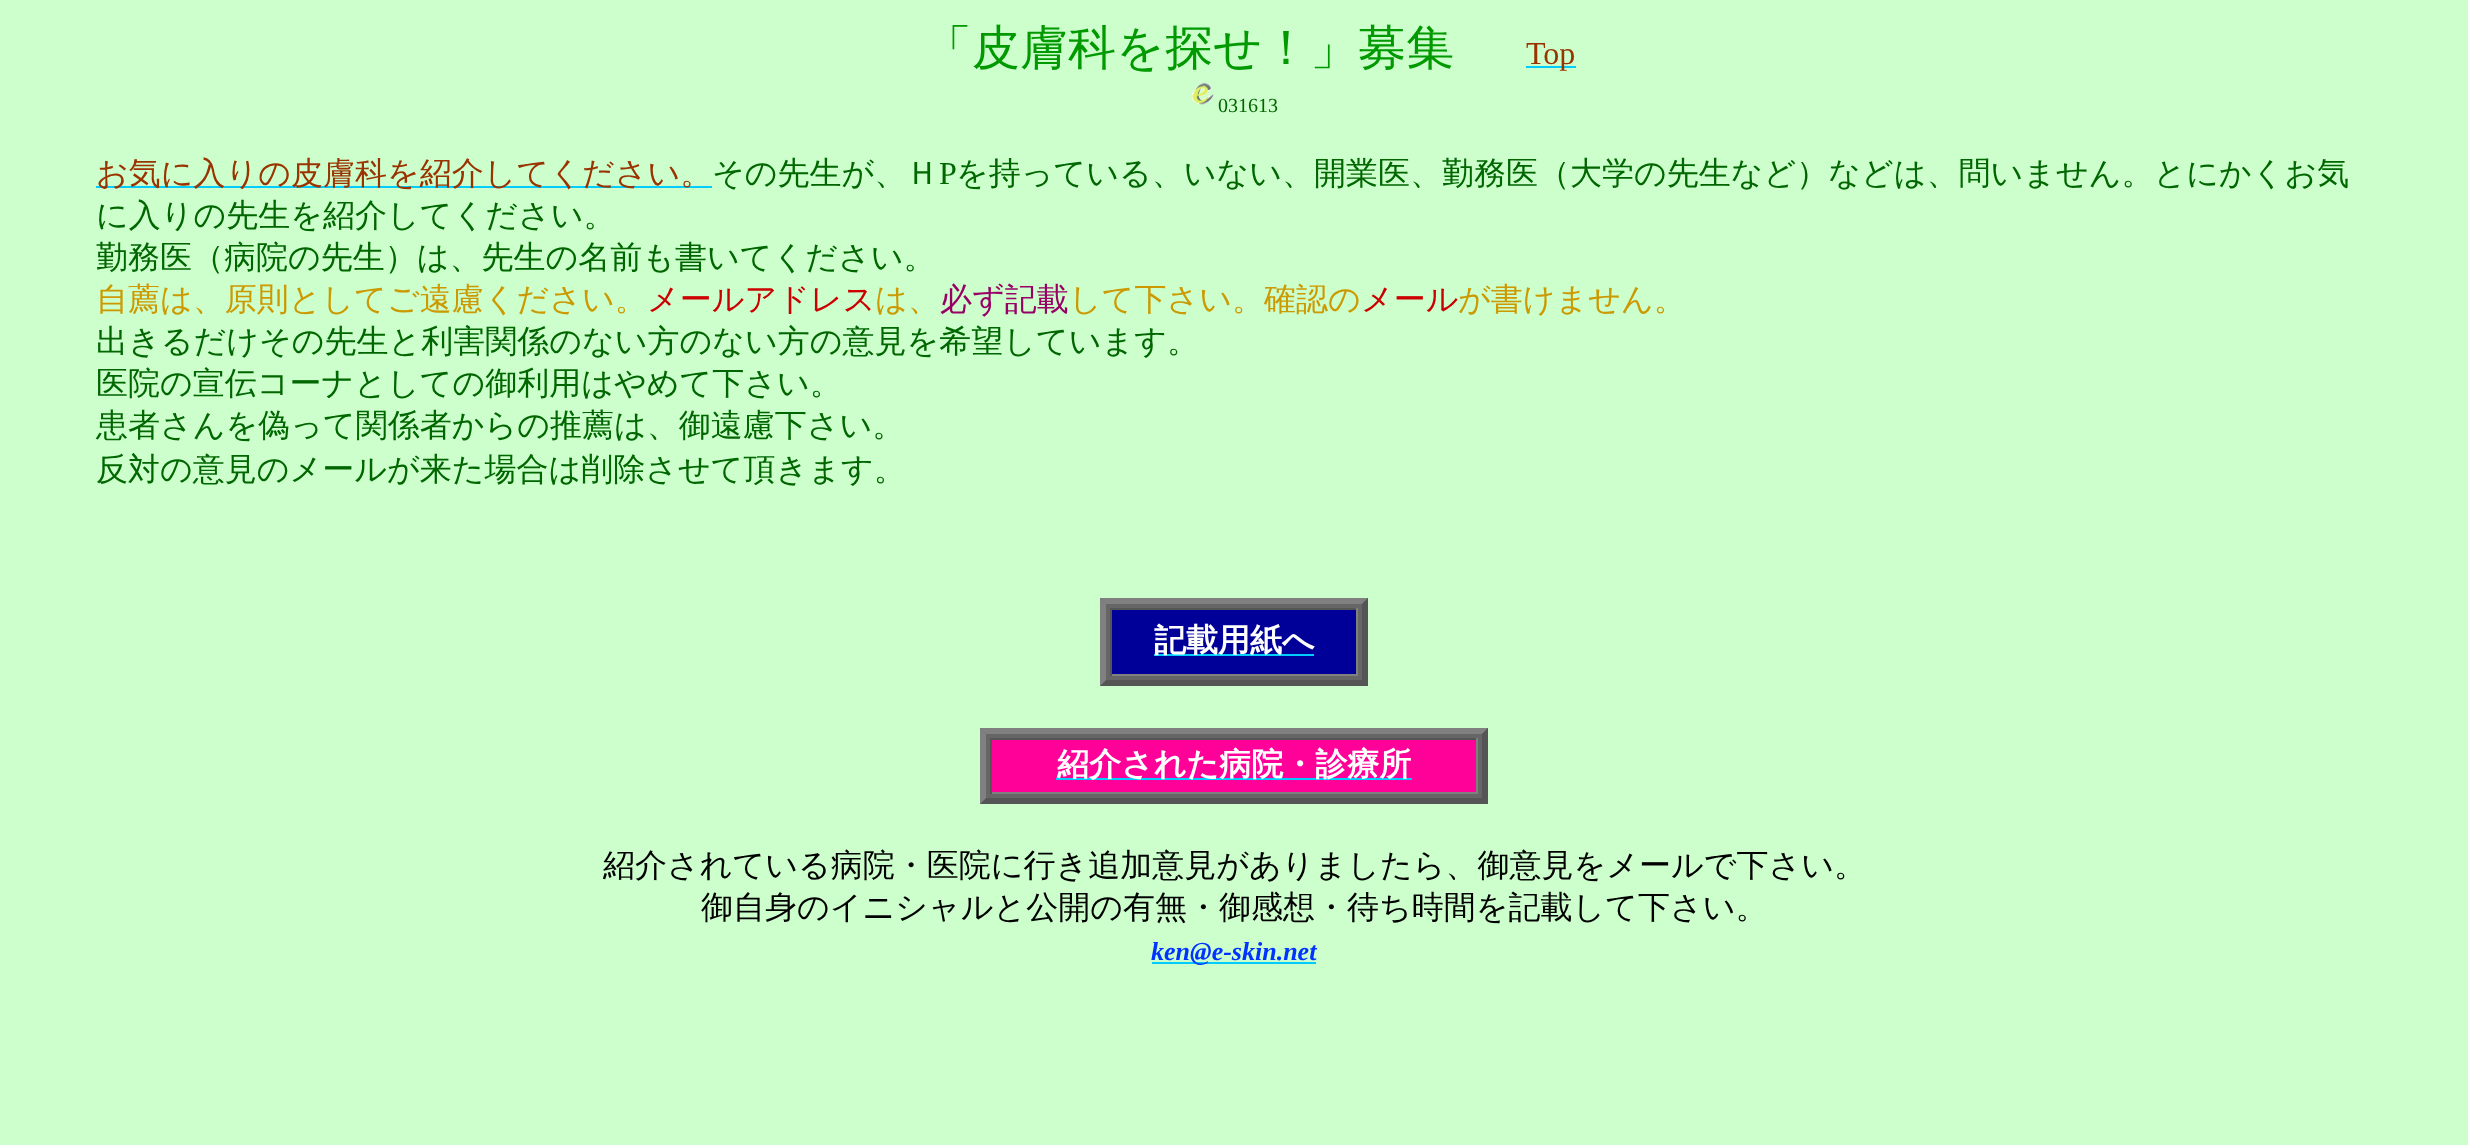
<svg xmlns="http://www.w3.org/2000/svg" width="2468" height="1145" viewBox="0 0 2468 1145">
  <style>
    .t1 { font: 500 48px WenQuanYi Zen Hei; fill: #090; }
    .t2 { font: 32px Liberation Serif; fill: #930; }
    .t3 { font: 20px Liberation Serif; fill: #060; }
    .t4 { font: 500 32px WenQuanYi Zen Hei; fill: #930; }
    .t5 { font: 500 32px WenQuanYi Zen Hei; fill: #060; }
    .t6 { font: 32px Liberation Serif; fill: #060; }
    .t7 { font: 500 32px WenQuanYi Zen Hei; fill: #c90; }
    .t8 { font: 500 32px WenQuanYi Zen Hei; fill: #c00; }
    .t9 { font: 500 32px WenQuanYi Zen Hei; fill: #906; }
    .t10 { font: bold 32px WenQuanYi Zen Hei; fill: #fff; }
    .t11 { font: 500 32px WenQuanYi Zen Hei; fill: #000; }
    .t12 { font: italic bold 26px Liberation Serif; fill: #03f; }
  </style>
  <rect width="100%" height="100%" fill="#cfc"/>
  <text x="924" y="64" class="t1">「皮膚科を探せ！」募集</text>
  <rect x="1526" y="66" width="50" height="2" fill="#0cf"/>
  <text x="1526" y="64" class="t2">Top</text>
  <image x="1192" y="82" width="22" height="23" href="images/1.png"/>
  <text x="1218" y="112" class="t3">031613</text>
  <rect x="96" y="186" width="616" height="2" fill="#0cf"/>
  <text x="96" y="184" class="t4">お気に入りの皮膚科を紹介してください。</text>
  <text x="712" y="184" class="t5">その先生が、Ｈ</text>
  <text x="939" y="184" class="t6">P</text>
  <text x="956" y="184" class="t5">を持っている、いない、開業医、勤務医（大学の先生など）などは、問いません。とにかくお気</text>
  <text x="96" y="226" class="t5">に入りの先生を紹介してください。</text>
  <text x="96" y="268" class="t5">勤務医（病院の先生）は、先生の名前も書いてください。</text>
  <text x="96" y="310" class="t7">自薦は、原則としてご遠慮ください。</text>
  <text x="647" y="310" class="t8">メールアドレス</text>
  <text x="875" y="310" class="t7">は、</text>
  <text x="940" y="310" class="t9">必ず記載</text>
  <text x="1069" y="310" class="t7">して下さい。確認の</text>
  <text x="1361" y="310" class="t8">メール</text>
  <text x="1458" y="310" class="t7">が書けません。</text>
  <text x="96" y="352" class="t5">出きるだけその先生と利害関係のない方のない方の意見を希望しています。</text>
  <text x="96" y="394" class="t5">医院の宣伝コーナとしての御利用はやめて下さい。</text>
  <text x="96" y="436" class="t5">患者さんを偽って関係者からの推薦は、御遠慮下さい。</text>
  <text x="96" y="480" class="t5">反対の意見のメールが来た場合は削除させて頂きます。</text>
  <rect x="1100" y="598" width="268" height="88" fill="#666"/>
  <path d="M1100 598H1368L1362 604H1106Z" fill="#808080"/>
  <path d="M1368 598V686L1362 680V604Z" fill="#555"/>
  <path d="M1368 686H1100L1106 680H1362Z" fill="#555"/>
  <path d="M1100 686V598L1106 604V680Z" fill="#808080"/>
  <rect x="1112" y="610" width="244" height="64" fill="#009"/>
  <rect x="1110" y="608" width="248" height="2" fill="#555"/>
  <rect x="1356" y="608" width="2" height="68" fill="#808080"/>
  <rect x="1110" y="674" width="248" height="2" fill="#808080"/>
  <rect x="1110" y="608" width="2" height="68" fill="#555"/>
  <rect x="1154" y="654" width="160" height="2" fill="#0cf"/>
  <text x="1154" y="651" class="t10">記載用紙へ</text>
  <rect x="980" y="728" width="508" height="76" fill="#666"/>
  <path d="M980 728H1488L1482 734H986Z" fill="#808080"/>
  <path d="M1488 728V804L1482 798V734Z" fill="#555"/>
  <path d="M1488 804H980L986 798H1482Z" fill="#555"/>
  <path d="M980 804V728L986 734V798Z" fill="#808080"/>
  <rect x="992" y="740" width="484" height="52" fill="#f09"/>
  <rect x="990" y="738" width="488" height="2" fill="#555"/>
  <rect x="1476" y="738" width="2" height="56" fill="#808080"/>
  <rect x="990" y="792" width="488" height="2" fill="#808080"/>
  <rect x="990" y="738" width="2" height="56" fill="#555"/>
  <rect x="1056" y="778" width="356" height="2" fill="#0cf"/>
  <text x="1057" y="775" class="t10">紹介された病院・診療所</text>
  <text x="603" y="876" class="t11">紹介されている病院・医院に行き追加意見がありましたら、御意見をメールで下さい。</text>
  <text x="701" y="918" class="t11">御自身のイニシャルと公開の有無・御感想・待ち時間を記載して下さい。</text>
  <rect x="1152" y="962" width="164" height="2" fill="#0cf"/>
  <text x="1151" y="960" class="t12">ken@e-skin.net</text>
</svg>
